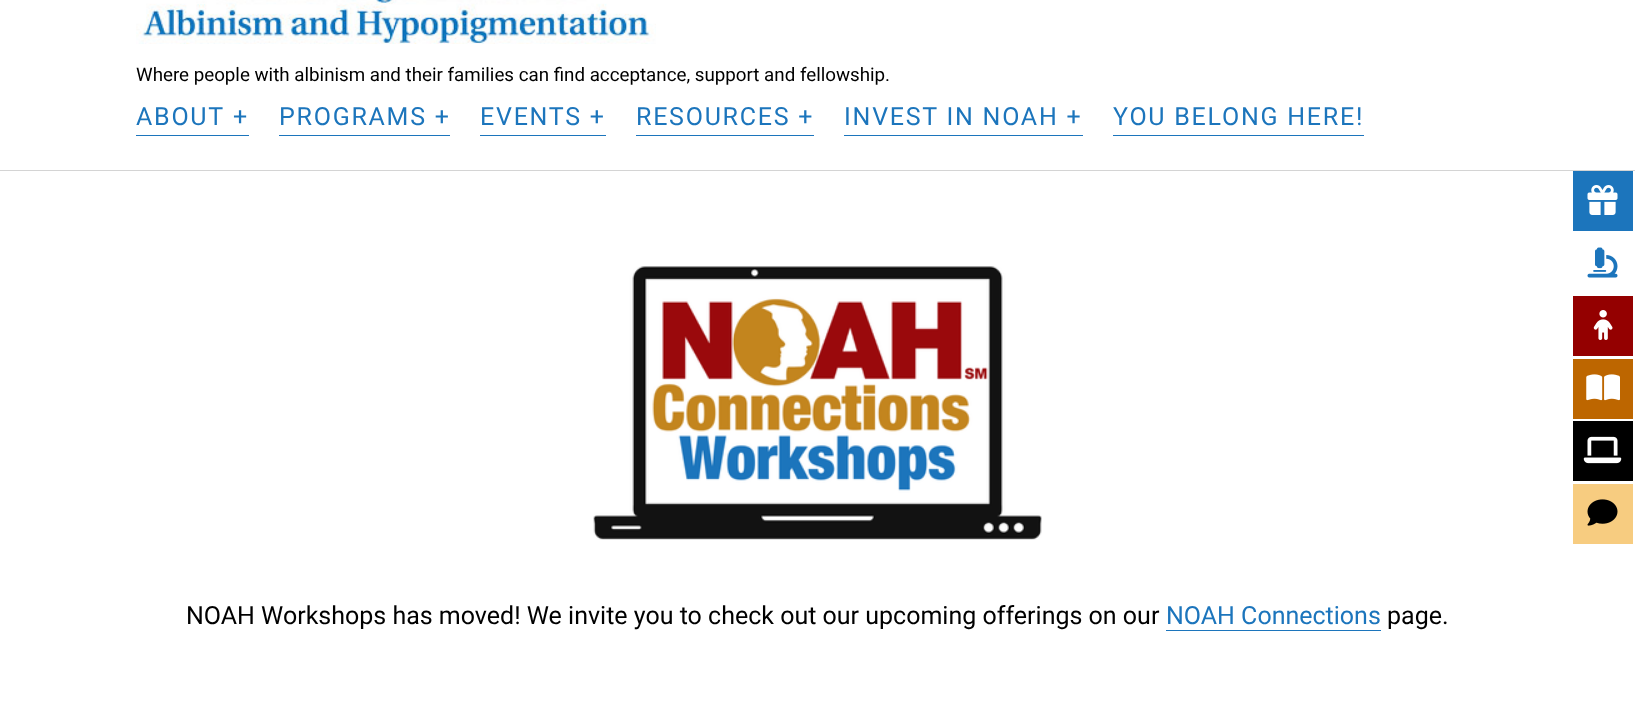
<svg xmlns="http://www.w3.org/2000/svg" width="1635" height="714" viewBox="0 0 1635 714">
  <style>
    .t1 { font: 18.75px Roboto; fill: #000; }
    .t2 { font: 25px Roboto; letter-spacing: 1.75px; fill: #1c75bc; }
    .t3 { font: 25px Roboto; fill: #000; }
    .t4 { font: 25px Roboto; fill: #1c75bc; }
  </style>
  <rect width="100%" height="100%" fill="#fff"/>
  <rect x="0" y="170" width="1635" height="1" fill="#d4d4d4"/>
  <image x="136" y="0" width="520" height="44" href="images/1.png"/>
  <text x="136" y="81" class="t1">Where people with albinism and their families can find acceptance, support and fellowship.</text>
  <rect x="136" y="135" width="113" height="1" fill="#1c75bc"/>
  <text x="136" y="125" class="t2">ABOUT</text>
  <text x="233" y="125" class="t2">+</text>
  <rect x="279" y="135" width="171" height="1" fill="#1c75bc"/>
  <text x="279" y="125" class="t2">PROGRAMS +</text>
  <rect x="480" y="135" width="126" height="1" fill="#1c75bc"/>
  <text x="480" y="125" class="t2">EVENTS +</text>
  <rect x="636" y="135" width="178" height="1" fill="#1c75bc"/>
  <text x="636" y="125" class="t2">RESOURCES +</text>
  <rect x="844" y="135" width="239" height="1" fill="#1c75bc"/>
  <text x="844" y="125" class="t2">INVEST IN NOAH +</text>
  <rect x="1113" y="135" width="251" height="1" fill="#1c75bc"/>
  <text x="1113" y="125" class="t2">YOU BELONG HERE!</text>
  <image x="593" y="266" width="449" height="274" href="images/2.png"/>
  <text x="186" y="624" class="t3">NOAH Workshops has moved! We invite you to check out our upcoming offerings on our</text>
  <text x="1166" y="624" class="t4">NOAH Connections</text>
  <rect x="1166" y="630" width="215" height="1" fill="#1c75bc"/>
  <text x="1387" y="624" class="t3">page.</text>
  <rect x="1573" y="171" width="60" height="60" fill="#1c75bc"/>
  <image x="1587" y="185" width="31" height="30" href="images/3.png"/>
  <image x="1587" y="247" width="31" height="31" href="images/4.png"/>
  <rect x="1573" y="296" width="60" height="60" fill="#940000"/>
  <image x="1593" y="310" width="20" height="30" href="images/5.png"/>
  <rect x="1573" y="359" width="60" height="60" fill="#bd6600"/>
  <image x="1586" y="374" width="34" height="27" href="images/6.png"/>
  <rect x="1573" y="421" width="60" height="60" fill="#000"/>
  <image x="1583" y="436" width="39" height="28" href="images/7.png"/>
  <rect x="1573" y="484" width="60" height="60" fill="#f7cc80"/>
  <image x="1587" y="499" width="31" height="27" href="images/8.png"/>
</svg>
